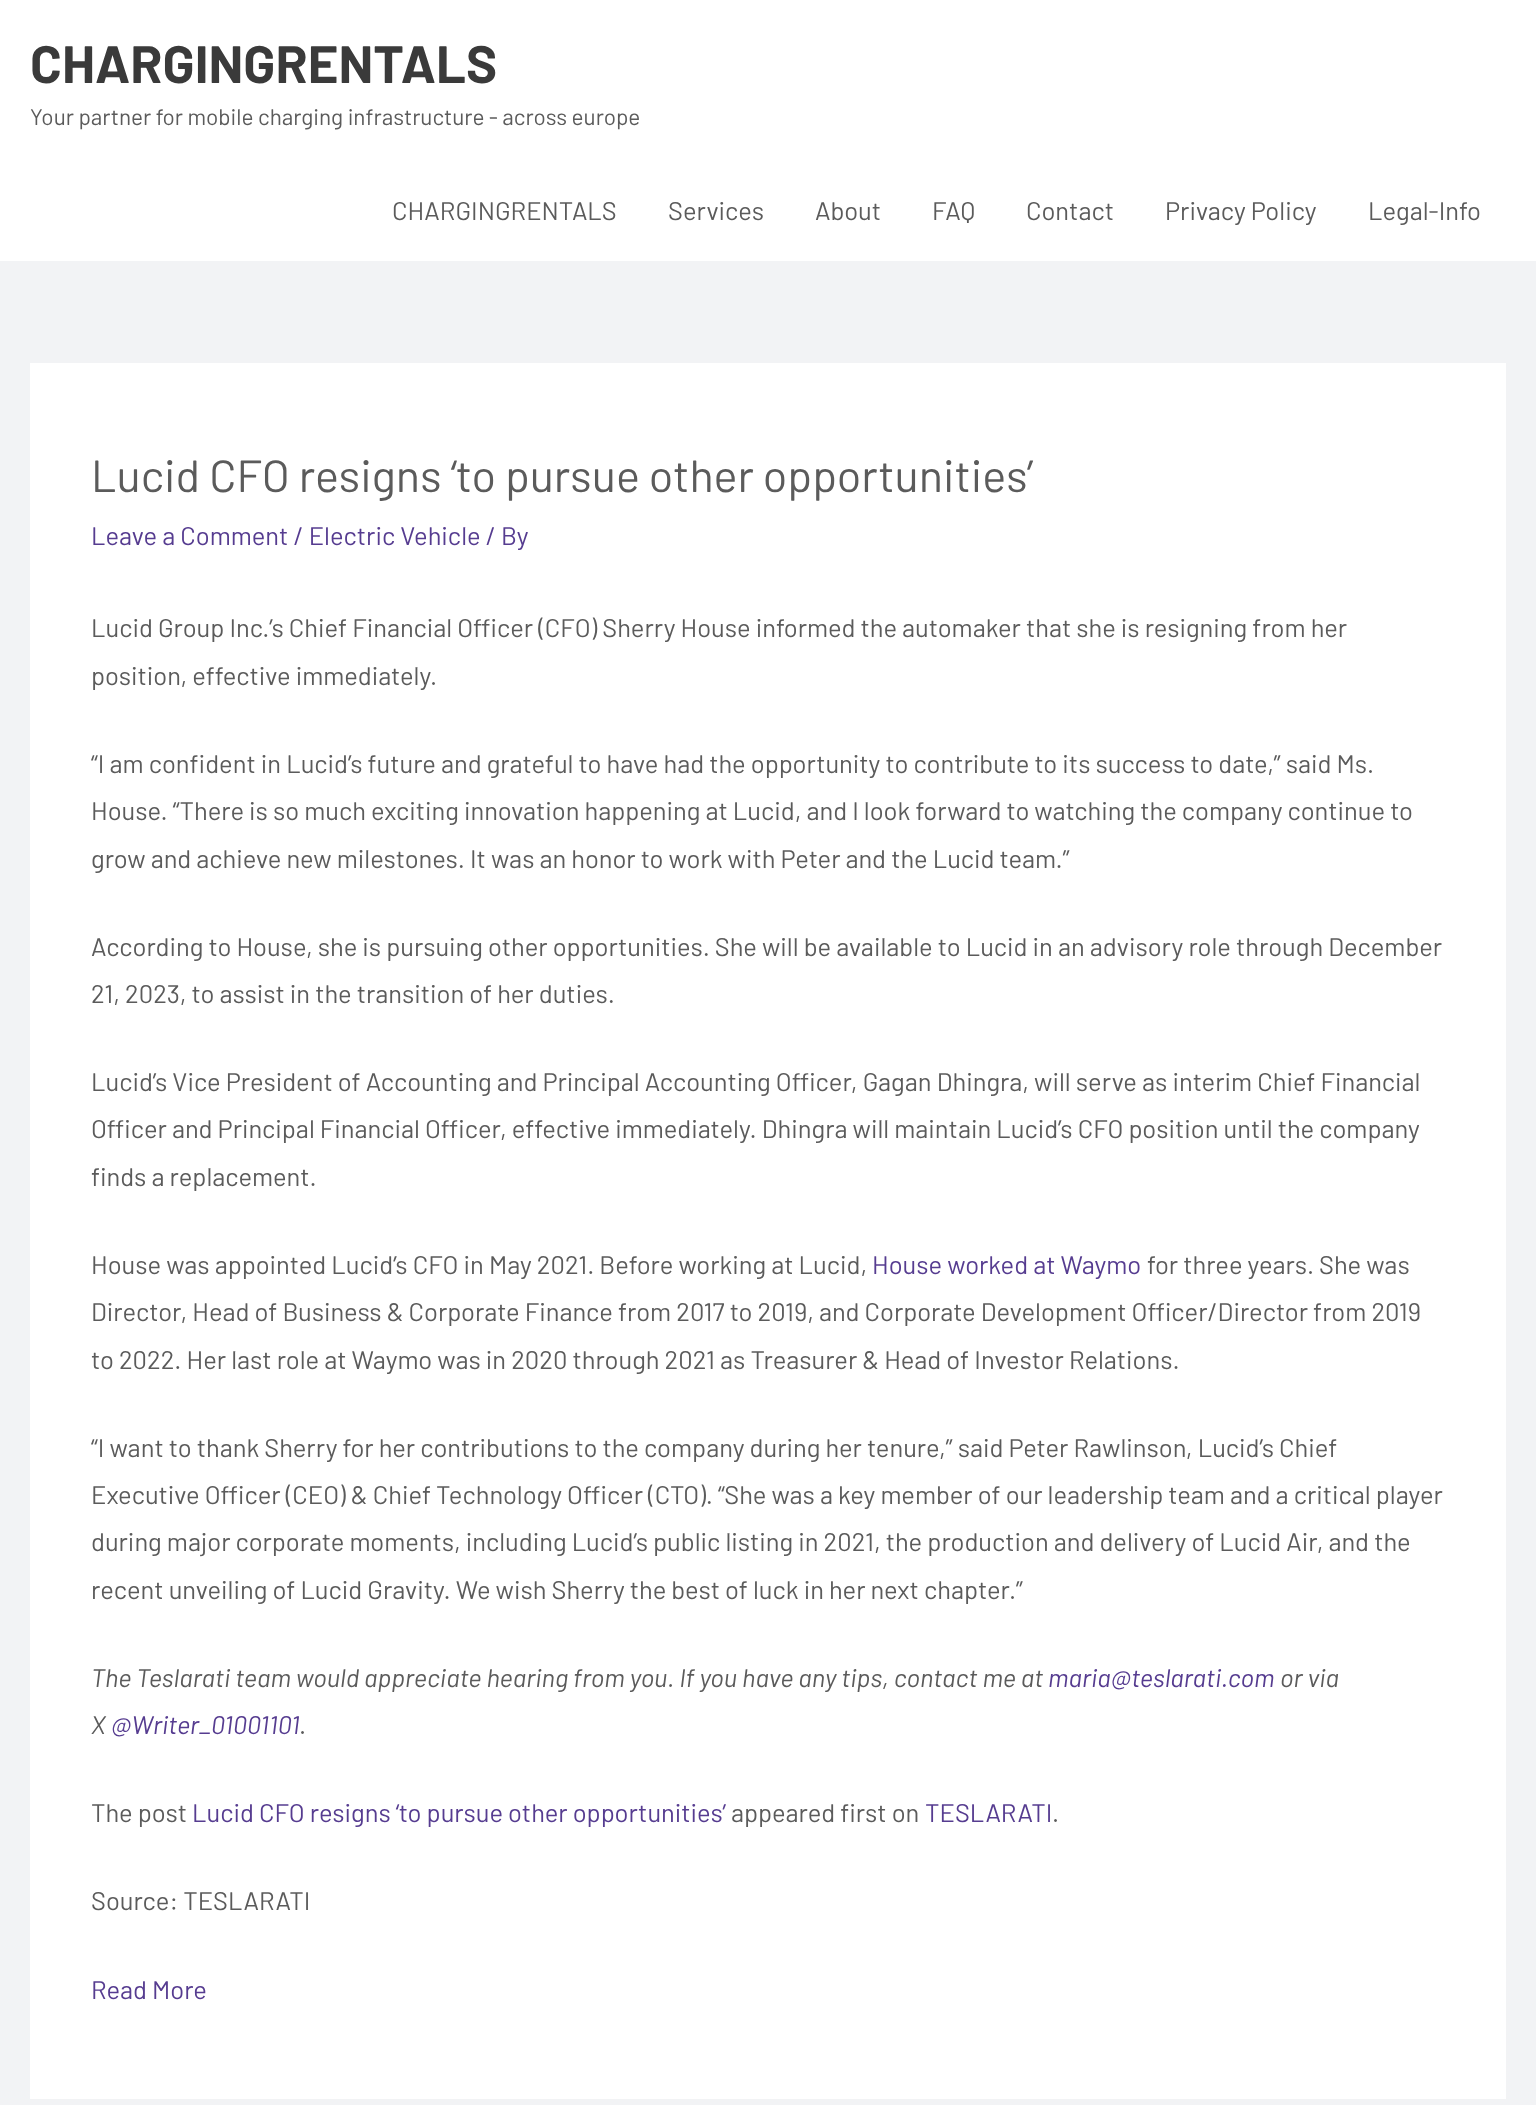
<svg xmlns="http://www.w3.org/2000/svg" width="1536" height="2105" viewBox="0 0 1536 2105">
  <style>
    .t1 { font: bold 52.5px Barlow; fill: #3a3a3a; }
    .t2 { font: 22.5px Barlow; fill: #5b5b5b; }
    .t3 { font: 25.5px Barlow; fill: #5b5b5b; }
    .t4 { font: 45px Barlow; fill: #5b5b5b; }
    .t5 { font: 25.5px Barlow; fill: #563c90; }
    .t6 { font: italic 25.5px Barlow; fill: #5b5b5b; }
    .t7 { font: italic 25.5px Barlow; fill: #563c90; }
  </style>
  <rect width="100%" height="100%" fill="#f2f3f5"/>
  <rect x="0" y="0" width="1536" height="261" fill="#fff"/>
  <text x="30" y="83" class="t1">CHARGINGRENTALS</text>
  <text x="30" y="125" class="t2">Your partner for mobile charging infrastructure - across europe</text>
  <text x="392" y="220" class="t3">CHARGINGRENTALS</text>
  <text x="668" y="220" class="t3">Services</text>
  <text x="815" y="220" class="t3">About</text>
  <text x="932" y="220" class="t3">FAQ</text>
  <text x="1026" y="220" class="t3">Contact</text>
  <text x="1165" y="220" class="t3">Privacy Policy</text>
  <text x="1368" y="220" class="t3">Legal-Info</text>
  <rect x="30" y="363" width="1476" height="1736" fill="#fff"/>
  <text x="91" y="492" class="t4">Lucid CFO resigns ‘to pursue other opportunities’</text>
  <text x="91" y="545" class="t5">Leave a Comment / Electric Vehicle / By</text>
  <text x="91" y="637" class="t3">Lucid Group Inc.’s Chief Financial Officer (CFO) Sherry House informed the automaker that she is resigning from her</text>
  <text x="91" y="685" class="t3">position, effective immediately.</text>
  <text x="91" y="773" class="t3">“I am confident in Lucid’s future and grateful to have had the opportunity to contribute to its success to date,” said Ms.</text>
  <text x="91" y="820" class="t3">House. “There is so much exciting innovation happening at Lucid, and I look forward to watching the company continue to</text>
  <text x="91" y="868" class="t3">grow and achieve new milestones. It was an honor to work with Peter and the Lucid team.”</text>
  <text x="91" y="956" class="t3">According to House, she is pursuing other opportunities. She will be available to Lucid in an advisory role through December</text>
  <text x="91" y="1003" class="t3">21, 2023, to assist in the transition of her duties.</text>
  <text x="91" y="1091" class="t3">Lucid’s Vice President of Accounting and Principal Accounting Officer, Gagan Dhingra, will serve as interim Chief Financial</text>
  <text x="91" y="1138" class="t3">Officer and Principal Financial Officer, effective immediately. Dhingra will maintain Lucid’s CFO position until the company</text>
  <text x="91" y="1186" class="t3">finds a replacement.</text>
  <text x="91" y="1274" class="t3">House was appointed Lucid’s CFO in May 2021. Before working at Lucid,</text>
  <text x="872" y="1274" class="t5">House worked at Waymo</text>
  <text x="1147" y="1274" class="t3">for three years. She was</text>
  <text x="91" y="1321" class="t3">Director, Head of Business &amp; Corporate Finance from 2017 to 2019, and Corporate Development Officer/Director from 2019</text>
  <text x="91" y="1369" class="t3">to 2022. Her last role at Waymo was in 2020 through 2021 as Treasurer &amp; Head of Investor Relations.</text>
  <text x="91" y="1457" class="t3">“I want to thank Sherry for her contributions to the company during her tenure,” said Peter Rawlinson, Lucid’s Chief</text>
  <text x="91" y="1504" class="t3">Executive Officer (CEO) &amp; Chief Technology Officer (CTO). “She was a key member of our leadership team and a critical player</text>
  <text x="91" y="1551" class="t3">during major corporate moments, including Lucid’s public listing in 2021, the production and delivery of Lucid Air, and the</text>
  <text x="91" y="1599" class="t3">recent unveiling of Lucid Gravity. We wish Sherry the best of luck in her next chapter.”</text>
  <text x="91" y="1687" class="t6">The Teslarati team would appreciate hearing from you. If you have any tips, contact me at</text>
  <text x="1048" y="1687" class="t7">maria@teslarati.com</text>
  <text x="1280" y="1687" class="t6">or via</text>
  <text x="91" y="1734" class="t6">X</text>
  <text x="111" y="1734" class="t7">@Writer_01001101</text>
  <text x="299" y="1734" class="t3">.</text>
  <text x="91" y="1822" class="t3">The post</text>
  <text x="192" y="1822" class="t5">Lucid CFO resigns ‘to pursue other opportunities’</text>
  <text x="731" y="1822" class="t3">appeared first on</text>
  <text x="925" y="1822" class="t5">TESLARATI</text>
  <text x="1052" y="1822" class="t3">.</text>
  <text x="91" y="1910" class="t3">Source: TESLARATI</text>
  <text x="91" y="1999" class="t5">Read More</text>
</svg>
